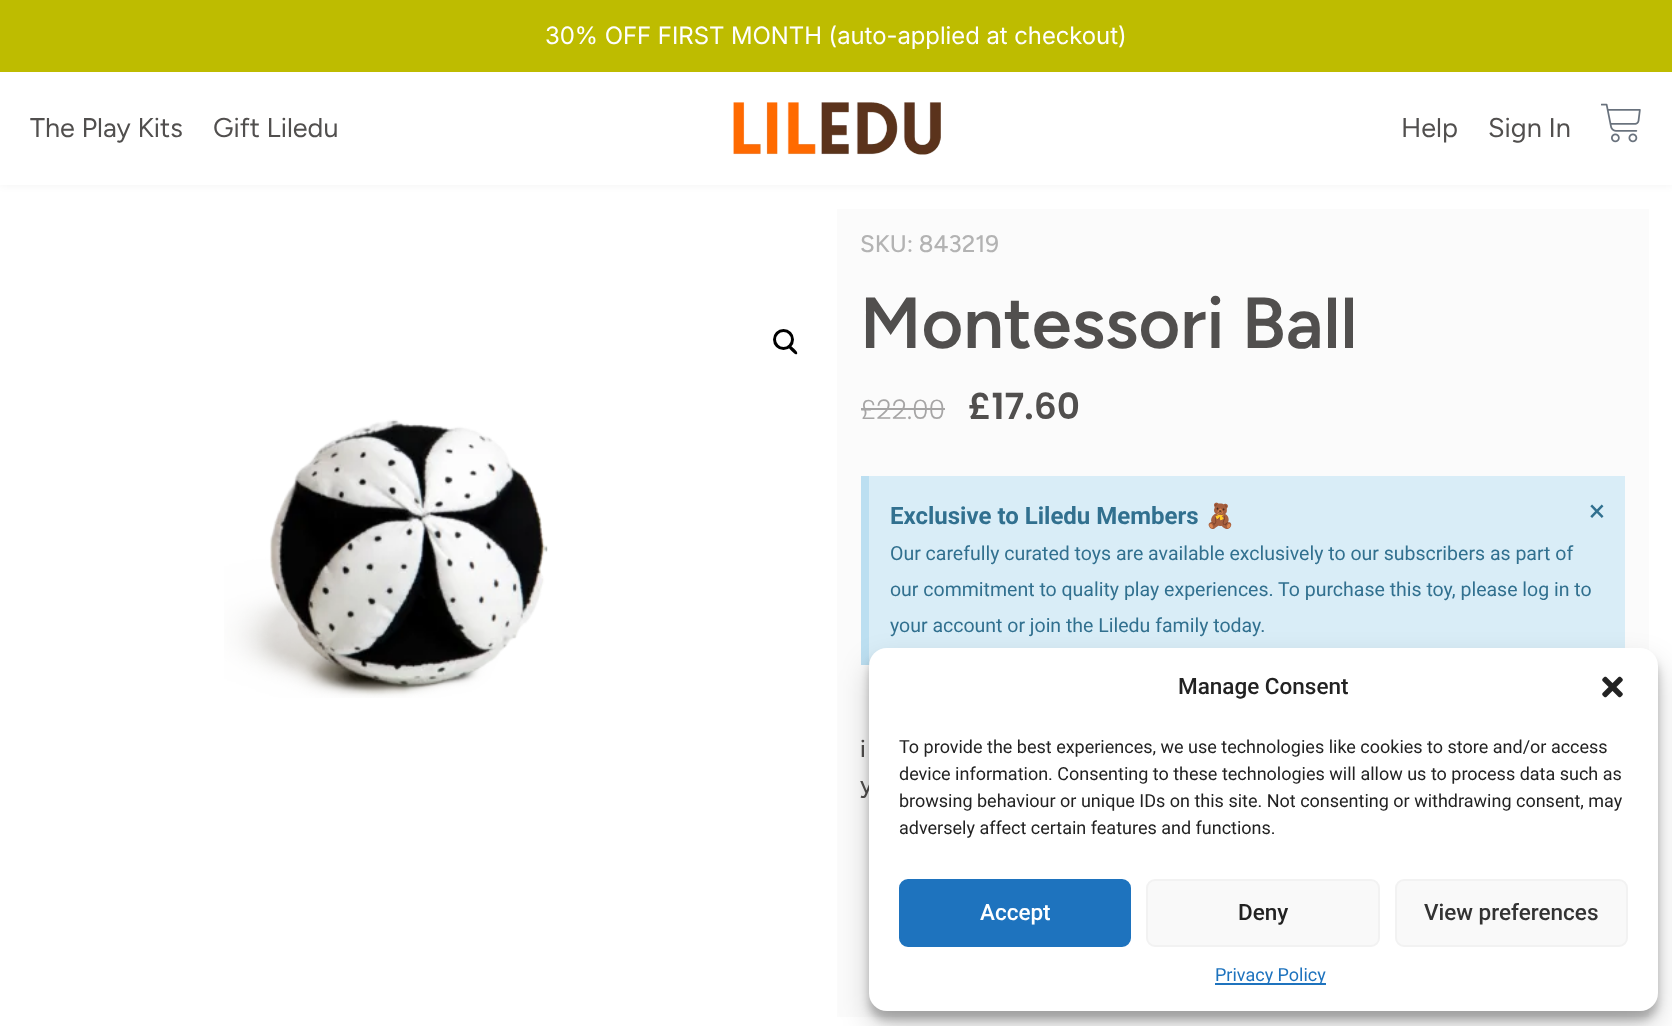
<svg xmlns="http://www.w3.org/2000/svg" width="1672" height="1026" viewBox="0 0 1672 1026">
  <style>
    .t1 { font: 24px Inter; fill: #fff; }
    .t2 { font: 27px Figtree; fill: #514f4e; }
    .t3 { font: 500 24px Figtree; fill: #b3b3b3; }
    .t4 { font: 600 72px Figtree; fill: #514f4e; }
    .t5 { font: 300 27px Poppins; fill: #a6a5a5; }
    .t6 { font: 600 36px Poppins; fill: #514f4e; }
    .t7 { font: bold 24px Roboto; fill: #31708f; }
    .t8 { font: bold 24px Noto Color Emoji; fill: #31708f; }
    .t9 { font: 30px Roboto; fill: #31708f; }
    .t10 { font: 19.5px Roboto; fill: #31708f; }
    .t11 { font: 500 24px Figtree; fill: #514f4e; }
    .t12 { font: 500 22.5px Roboto; fill: #222; }
    .t13 { font: 18px Roboto; fill: #222; }
    .t14 { font: 500 22.5px Roboto; fill: #fff; }
    .t15 { font: 500 22.5px Roboto; fill: #333; }
    .t16 { font: 18px Roboto; fill: #1e73be; }
  </style>
  <rect width="100%" height="100%" fill="#fff"/>
  <rect x="0" y="0" width="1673" height="185" fill="#0000000d" filter="blur(4px)"/>
  <rect x="0" y="72" width="1672" height="113" fill="#fff"/>
  <rect x="0" y="0" width="1672" height="72" fill="#bebc00"/>
  <text x="545" y="44" class="t1">30% OFF FIRST MONTH (auto-applied at checkout)</text>
  <text x="30" y="137" class="t2">The Play Kits</text>
  <text x="213" y="137" class="t2">Gift Liledu</text>
  <image x="733" y="102" width="208" height="53" href="images/1.png"/>
  <text x="1401" y="137" class="t2">Help</text>
  <text x="1488" y="137" class="t2">Sign In</text>
  <image x="1601" y="103" width="40" height="40" href="images/2.png"/>
  <circle cx="783.5" cy="339.5" r="9" fill="none" stroke="#000" stroke-width="3"/>
  <path d="M788.5 345.5C790 344 793 348 794 348.5C794.5 349.5 798.5 352.5 797 354C795.5 355.5 792.5 351.5 791.5 351C791 350 787 347 788.5 345.5Z" fill="#000"/>
  <image x="224" y="419" width="324" height="279" href="images/3.png"/>
  <rect x="837" y="209" width="812" height="808" fill="#fbfbfb"/>
  <text x="860" y="252" class="t3">SKU: 843219</text>
  <text x="860" y="348" class="t4">Montessori Ball</text>
  <text x="860" y="419" class="t5">£22.00</text>
  <rect x="861" y="408" width="84" height="2" fill="#a6a5a5"/>
  <text x="968" y="419" class="t6">£17.60</text>
  <rect x="869" y="476" width="756" height="189" fill="#d9edf7"/>
  <rect x="861" y="476" width="8" height="189" fill="#bcdff1"/>
  <text x="890" y="524" class="t7">Exclusive to Liledu Members</text>
  <text x="1205" y="524" class="t8">🧸</text>
  <text x="1589" y="521" class="t9">×</text>
  <text x="890" y="560" class="t10">Our carefully curated toys are available exclusively to our subscribers as part of</text>
  <text x="890" y="596" class="t10">our commitment to quality play experiences. To purchase this toy, please log in to</text>
  <text x="890" y="632" class="t10">your account or join the Liledu family today.</text>
  <text x="860" y="757" class="t11">i</text>
  <text x="860" y="793" class="t11">y</text>
  <rect x="869" y="657" width="789" height="363" rx="18" fill="#0000003b" filter="blur(4.5px)"/>
  <rect x="869" y="663" width="789" height="363" rx="18" fill="#00000030" filter="blur(15px)"/>
  <rect x="869" y="648" width="789" height="363" rx="18" fill="#fff"/>
  <text x="1178" y="694" class="t12">Manage Consent</text>
  <image x="1602" y="676" width="21" height="22" href="images/4.png"/>
  <text x="899" y="753" class="t13">To provide the best experiences, we use technologies like cookies to store and/or access</text>
  <text x="899" y="780" class="t13">device information. Consenting to these technologies will allow us to process data such as</text>
  <text x="899" y="807" class="t13">browsing behaviour or unique IDs on this site. Not consenting or withdrawing consent, may</text>
  <text x="899" y="834" class="t13">adversely affect certain features and functions.</text>
  <rect x="900" y="880" width="230" height="66" rx="8" fill="#1e73be" stroke="#1e73be" stroke-width="2"/>
  <text x="980" y="920" class="t14">Accept</text>
  <rect x="1147" y="880" width="232" height="66" rx="8" fill="#f9f9f9" stroke="#f2f2f2" stroke-width="2"/>
  <text x="1238" y="920" class="t12">Deny</text>
  <rect x="1396" y="880" width="231" height="66" rx="8" fill="#f9f9f9" stroke="#f2f2f2" stroke-width="2"/>
  <text x="1424" y="920" class="t15">View preferences</text>
  <rect x="1215" y="983" width="111" height="2" fill="#1e73be"/>
  <text x="1215" y="981" class="t16">Privacy Policy</text>
</svg>
